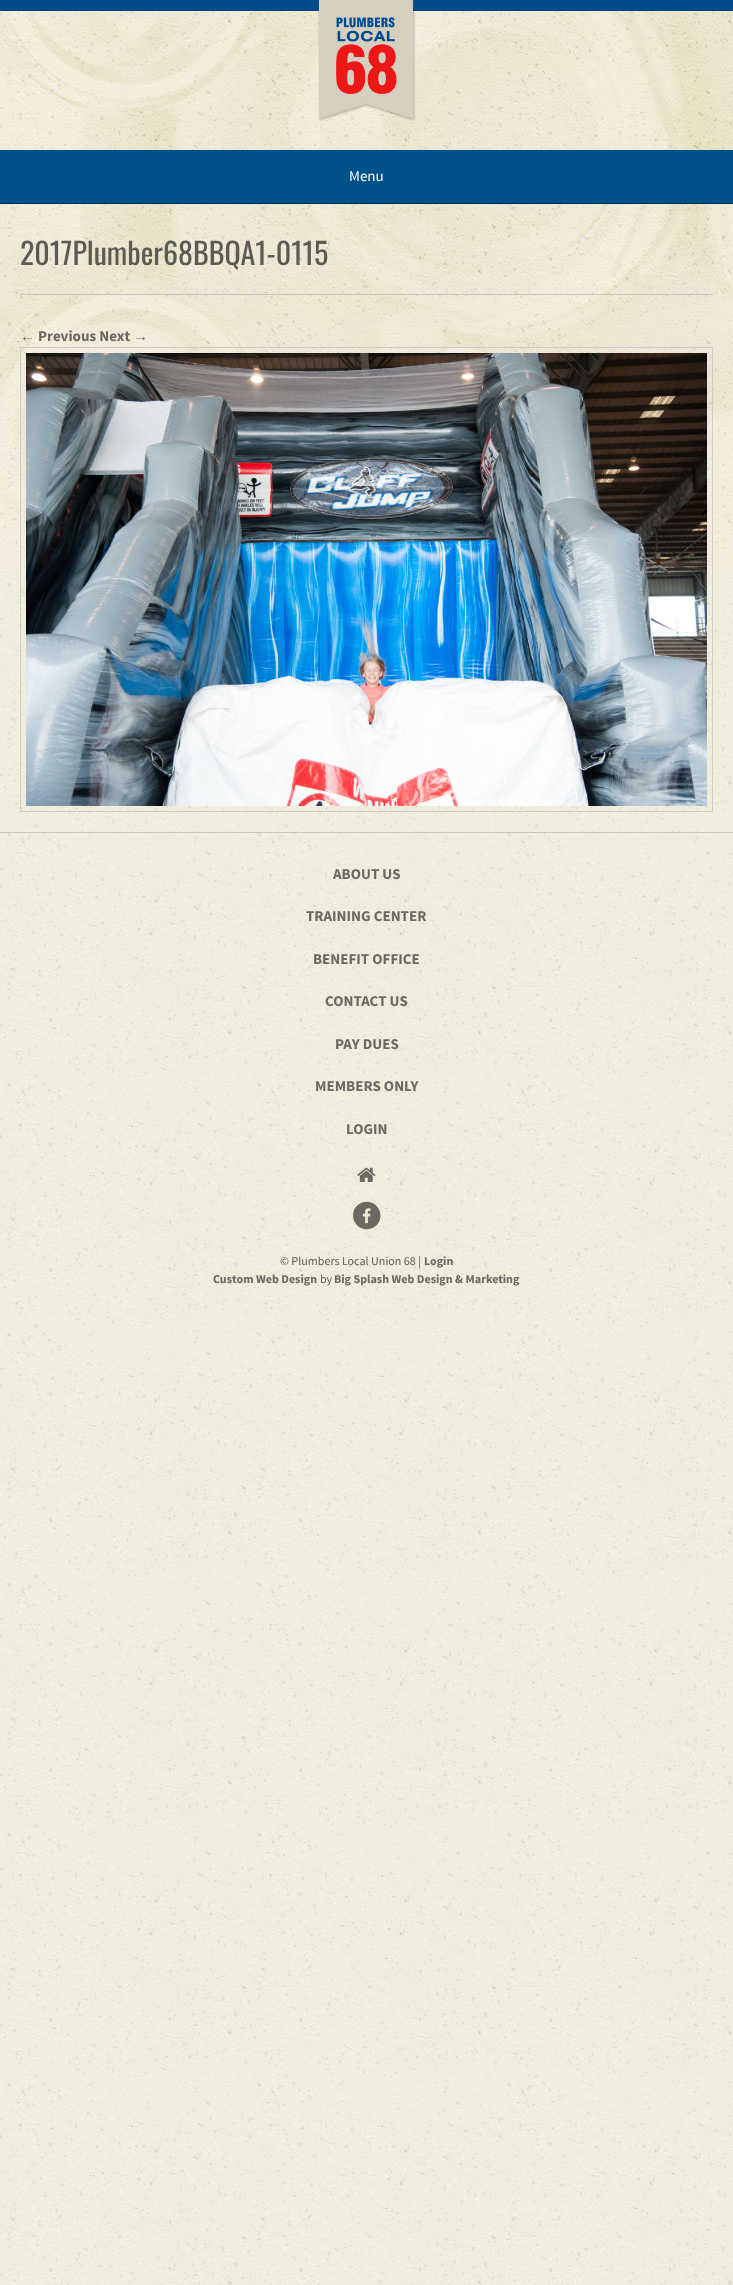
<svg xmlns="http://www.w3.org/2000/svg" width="733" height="2285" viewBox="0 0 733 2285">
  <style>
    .t1 { font: 15px Source Sans Pro; fill: #fff; }
    .t2 { font: 30px Oswald; fill: #5c5a54; }
    .t3 { font: bold 15px Liberation Sans; fill: #6b6962; }
    .t4 { font: bold 15px Source Sans Pro; fill: #6b6962; }
    .t5 { font: 12px Source Sans Pro; fill: #5c5a54; }
    .t6 { font: bold 12px Source Sans Pro; fill: #6b6962; }
  </style>
  <rect width="100%" height="100%" fill="#fff"/>
  <image x="0" y="571" width="733" height="1714" href="images/1.png"/>
  <image x="0" y="11" width="733" height="560" href="images/2.png"/>
  <rect x="0" y="0" width="733" height="11" fill="#004b8c"/>
  <image x="318" y="0" width="98" height="121" href="images/3.png"/>
  <rect x="0" y="150" width="733" height="53" fill="#00508a"/>
  <rect x="0" y="203" width="733" height="1" fill="#002e50"/>
  <text x="349" y="181" class="t1">Menu</text>
  <rect x="20" y="294" width="693" height="1" fill="#cac6bb"/>
  <text x="20" y="265" class="t2">2017Plumber68BBQA1-0115</text>
  <text x="20" y="341" class="t3">←</text>
  <text x="38" y="341" class="t4">Previous Next</text>
  <text x="133" y="341" class="t3">→</text>
  <rect x="20.5" y="347.5" width="692" height="464" fill="none" stroke="#ccc"/>
  <image x="26" y="353" width="681" height="453" href="images/4.png"/>
  <rect x="0" y="832" width="733" height="1" fill="#cac6bb"/>
  <text x="333" y="879" class="t4">ABOUT US</text>
  <text x="306" y="921" class="t4">TRAINING CENTER</text>
  <text x="313" y="964" class="t4">BENEFIT OFFICE</text>
  <text x="325" y="1006" class="t4">CONTACT US</text>
  <text x="335" y="1049" class="t4">PAY DUES</text>
  <text x="315" y="1091" class="t4">MEMBERS ONLY</text>
  <text x="346" y="1134" class="t4">LOGIN</text>
  <image x="357" y="1167" width="19" height="15" href="images/5.png"/>
  <path d="M378.5 1208.5C380 1211 380.5 1214 380.5 1216.5C379.5 1230 361.5 1234 355 1222.5C353.5 1220 353 1217.5 353 1214.5C354 1201 372 1197 378.5 1208.5Z" fill="#6b6962"/>
  <image x="362" y="1208" width="9" height="16" href="images/6.png"/>
  <text x="280" y="1265" class="t5">© Plumbers Local Union 68 |</text>
  <text x="424" y="1265" class="t6">Login</text>
  <text x="213" y="1283" class="t6">Custom Web Design</text>
  <text x="320" y="1283" class="t5">by</text>
  <text x="334" y="1283" class="t6">Big Splash Web Design &amp; Marketing</text>
</svg>
